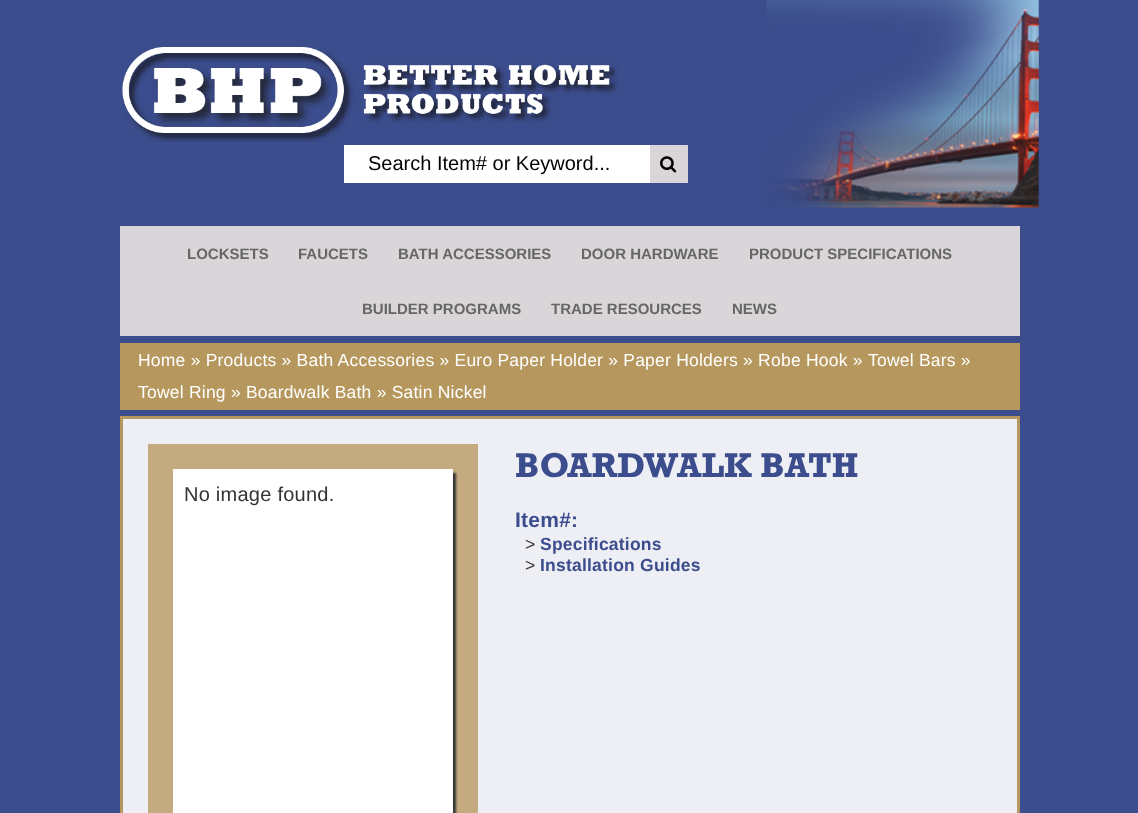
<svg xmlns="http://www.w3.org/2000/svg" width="1138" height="813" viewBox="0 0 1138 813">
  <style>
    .t1 { font: 20px Liberation Sans; fill: #000; }
    .t2 { font: bold 15px Liberation Sans; fill: #666; }
    .t3 { font: 17.5px Liberation Sans; letter-spacing: 0.22px; fill: #fff; }
    .t4 { font: 20px Liberation Sans; letter-spacing: 0.25px; fill: #333; }
    .t5 { font: bold 35px Rockwell; fill: #3c4d8d; }
    .t6 { font: bold 21px Liberation Sans; letter-spacing: 0.25px; fill: #3c4d8d; }
    .t7 { font: 17.5px Liberation Sans; letter-spacing: 0.22px; fill: #333; }
    .t8 { font: bold 17.5px Liberation Sans; letter-spacing: 0.22px; fill: #3c4d8d; }
  </style>
  <rect width="100%" height="100%" fill="#3c4d8d"/>
  <image x="122" y="47" width="496" height="95" href="images/1.png"/>
  <image x="766" y="0" width="273" height="208" href="images/2.png"/>
  <rect x="344" y="145" width="306" height="38" fill="#fff"/>
  <text x="368" y="170" class="t1">Search Item# or Keyword...</text>
  <rect x="650" y="145" width="38" height="38" fill="#d9d5d8"/>
  <image x="660" y="156" width="17" height="17" href="images/3.png"/>
  <rect x="120" y="226" width="900" height="110" fill="#d9d5d8"/>
  <text x="187" y="259" class="t2">LOCKSETS</text>
  <text x="298" y="259" class="t2">FAUCETS</text>
  <text x="398" y="259" class="t2">BATH ACCESSORIES</text>
  <text x="581" y="259" class="t2">DOOR HARDWARE</text>
  <text x="749" y="259" class="t2">PRODUCT SPECIFICATIONS</text>
  <text x="362" y="314" class="t2">BUILDER PROGRAMS</text>
  <text x="551" y="314" class="t2">TRADE RESOURCES</text>
  <text x="732" y="314" class="t2">NEWS</text>
  <rect x="120" y="343" width="900" height="67" fill="#b6985e"/>
  <text x="138" y="366" class="t3">Home » Products » Bath Accessories » Euro Paper Holder » Paper Holders » Robe Hook »</text>
  <text x="868" y="366" class="t3">Towel Bars »</text>
  <text x="138" y="398" class="t3">Towel Ring » Boardwalk Bath » Satin Nickel</text>
  <rect x="121.5" y="417.5" width="897" height="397" fill="#eeeef5" stroke="#b6985e" stroke-width="3"/>
  <rect x="148" y="444" width="330" height="369" fill="#c4ab7f"/>
  <rect x="176" y="473" width="280" height="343" fill="#333" filter="blur(1px)"/>
  <rect x="173" y="469" width="280" height="344" fill="#fff"/>
  <text x="184" y="501" class="t4">No image found.</text>
  <text x="515" y="477" class="t5">BOARDWALK BATH</text>
  <text x="515" y="527" class="t6">Item#:</text>
  <text x="525" y="550" class="t7">&gt;</text>
  <text x="540" y="550" class="t8">Specifications</text>
  <text x="525" y="571" class="t7">&gt;</text>
  <text x="540" y="571" class="t8">Installation Guides</text>
</svg>
